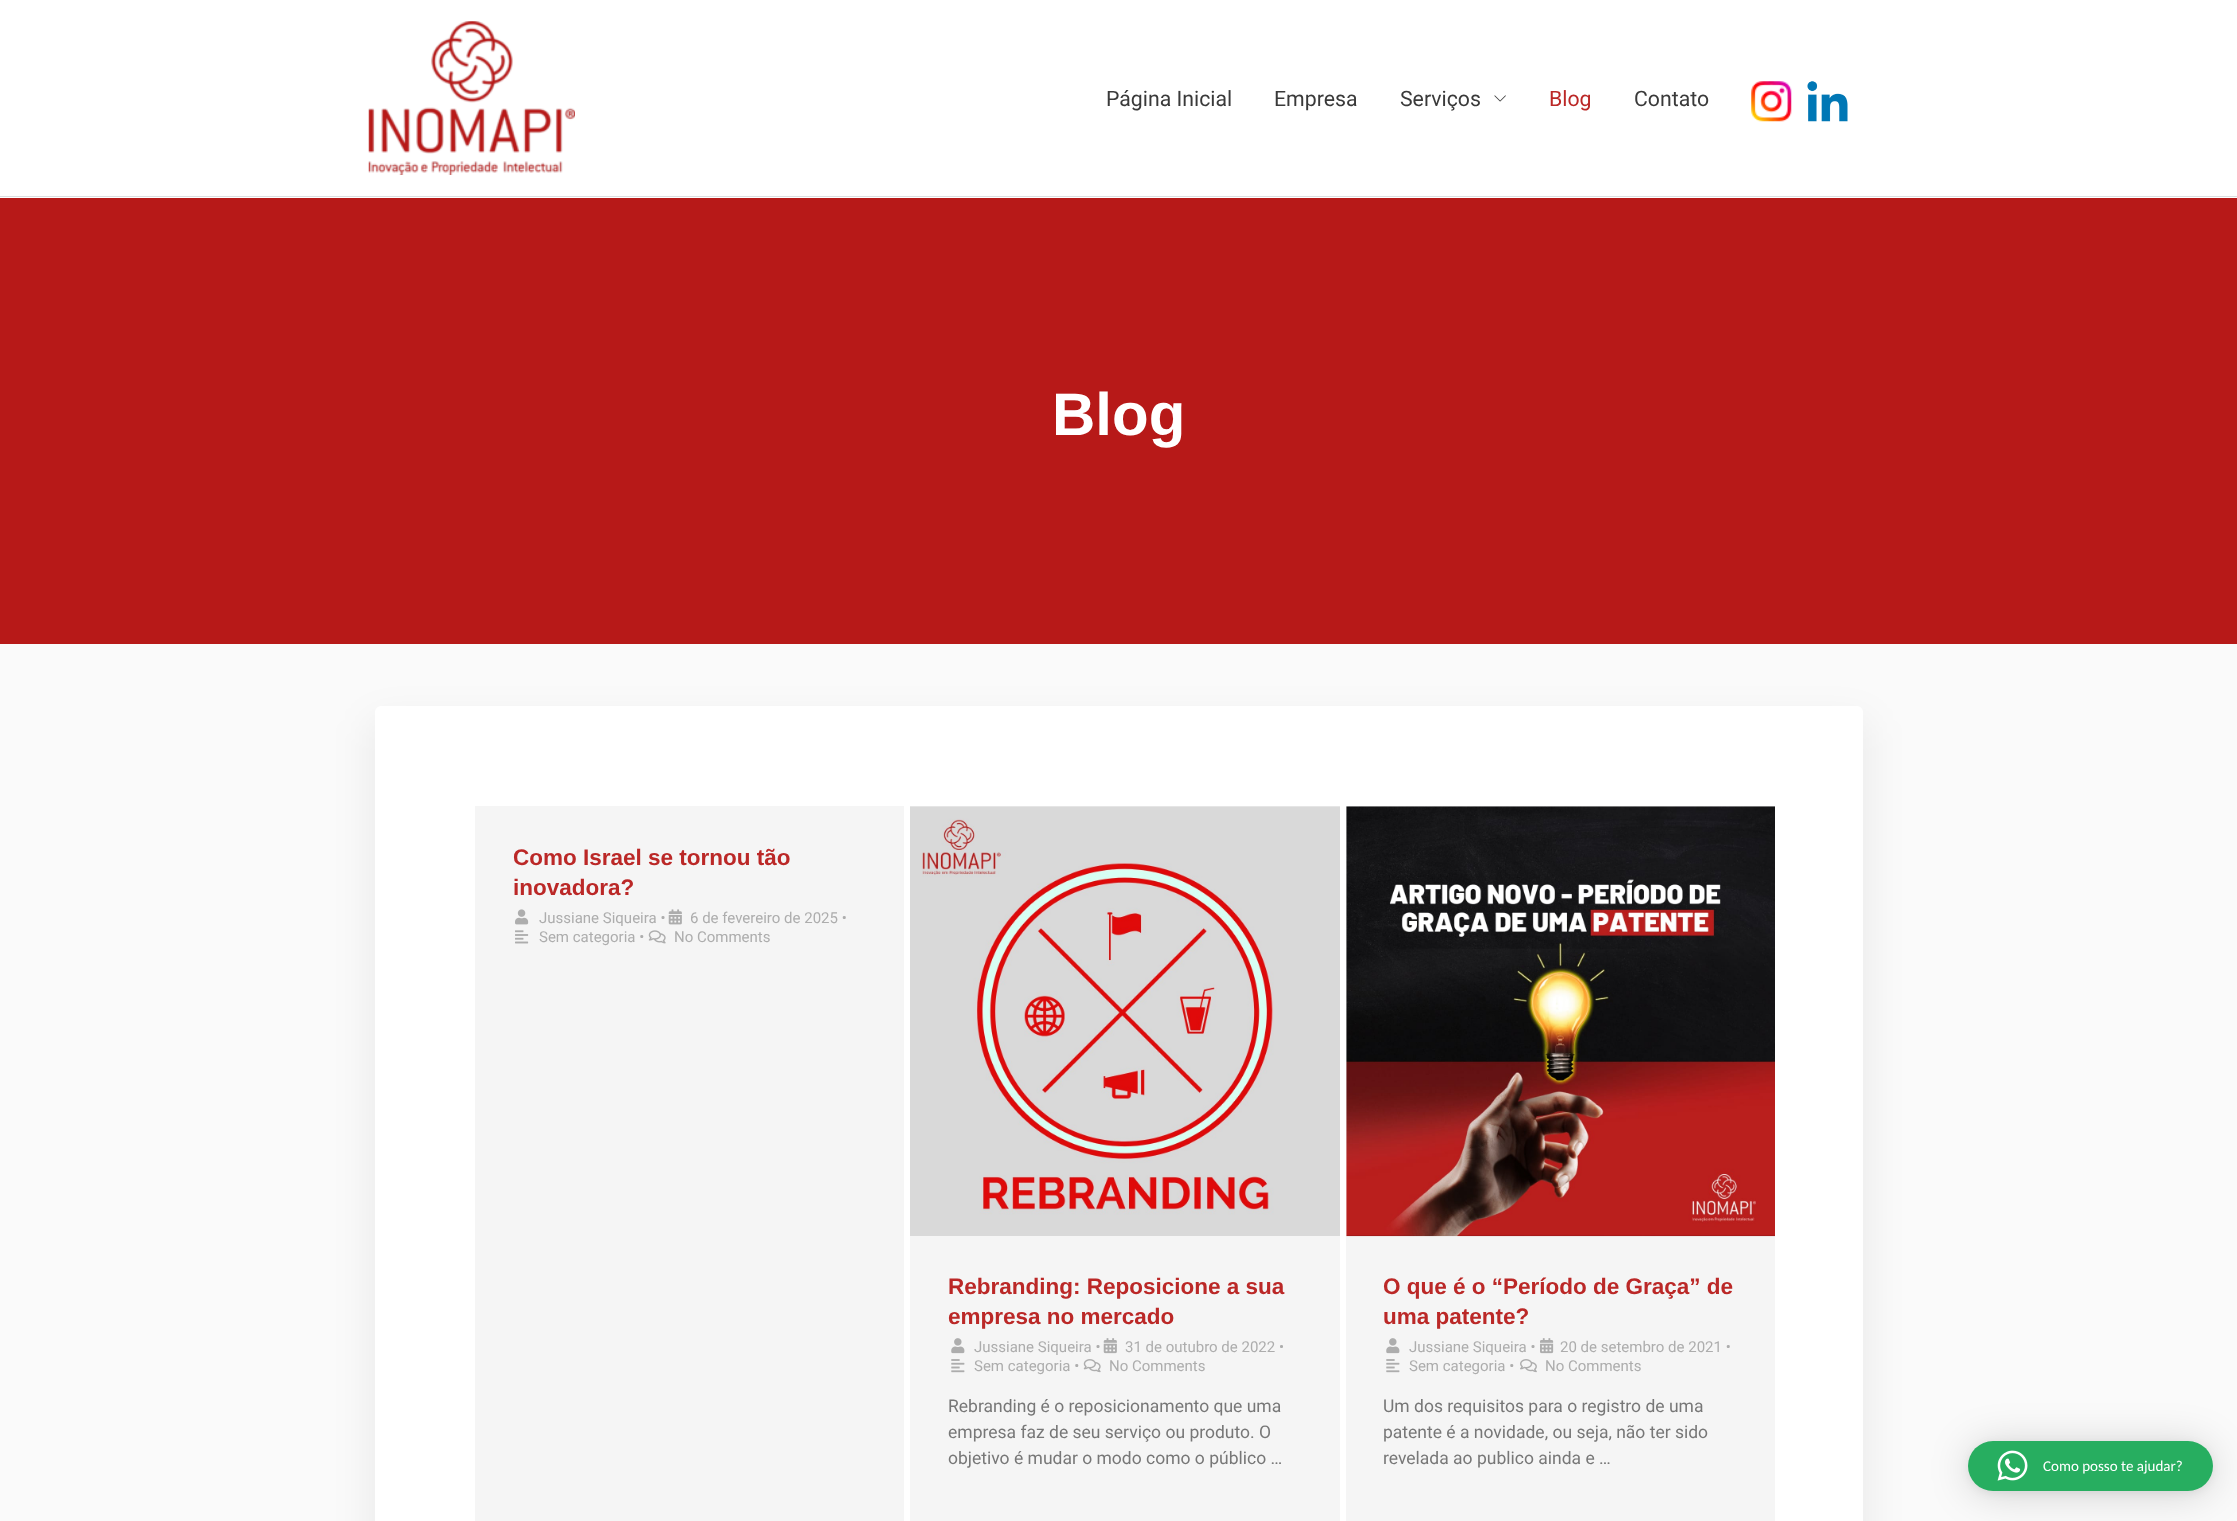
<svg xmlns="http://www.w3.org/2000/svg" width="2237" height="1521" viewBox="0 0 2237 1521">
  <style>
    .t1 { font: 21.25px Roboto; fill: #3a3a3a; }
    .t2 { font: 21.25px Roboto; fill: #bb2827; }
    .t3 { font: bold 60px Liberation Sans; fill: #fff; }
    .t4 { font: bold 22.5px Liberation Sans; fill: #bb2827; }
    .t5 { font: 15px Roboto; fill: #adadad; }
    .t6 { font: 17.5px Roboto; fill: #777; }
    .t7 { font: 15px Carlito; fill: #fff; }
  </style>
  <rect width="100%" height="100%" fill="#fafafa"/>
  <rect x="0" y="0" width="2237" height="198" fill="#fff"/>
  <rect x="0" y="196" width="2237" height="1" fill="#dbdee0"/>
  <image x="368" y="21" width="207" height="154" href="images/1.png"/>
  <text x="1106" y="106" class="t1">Página Inicial</text>
  <text x="1274" y="106" class="t1">Empresa</text>
  <text x="1400" y="106" class="t1">Serviços</text>
  <image x="1494" y="95" width="12" height="7" href="images/2.png"/>
  <text x="1549" y="106" class="t2">Blog</text>
  <text x="1634" y="106" class="t1">Contato</text>
  <image x="1751" y="81" width="41" height="41" href="images/3.png"/>
  <image x="1807" y="81" width="41" height="41" href="images/4.png"/>
  <rect x="0" y="198" width="2237" height="446" fill="#b71918"/>
  <text x="1052" y="435" class="t3">Blog</text>
  <rect x="369" y="719" width="1500" height="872" rx="13" fill="#0000000f" filter="blur(19px)"/>
  <rect x="375" y="706" width="1488" height="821" rx="6" fill="#fff"/>
  <rect x="475" y="806" width="429" height="715" fill="#f5f5f5"/>
  <text x="513" y="865" class="t4">Como Israel se tornou tão</text>
  <text x="513" y="895" class="t4">inovadora?</text>
  <image x="515" y="909" width="14" height="16" href="images/5.png"/>
  <text x="539" y="923" class="t5">Jussiane Siqueira •</text>
  <image x="668" y="909" width="14" height="16" href="images/6.png"/>
  <text x="690" y="923" class="t5">6 de fevereiro de 2025 •</text>
  <image x="515" y="930" width="14" height="14" href="images/7.png"/>
  <text x="539" y="942" class="t5">Sem categoria •</text>
  <image x="648" y="930" width="18" height="14" href="images/8.png"/>
  <text x="674" y="942" class="t5">No Comments</text>
  <rect x="910" y="806" width="430" height="715" fill="#f5f5f5"/>
  <image x="910" y="806" width="430" height="430" href="images/9.png"/>
  <text x="948" y="1294" class="t4">Rebranding: Reposicione a sua</text>
  <text x="948" y="1324" class="t4">empresa no mercado</text>
  <image x="951" y="1338" width="14" height="16" href="images/10.png"/>
  <text x="974" y="1352" class="t5">Jussiane Siqueira •</text>
  <image x="1103" y="1338" width="14" height="16" href="images/11.png"/>
  <text x="1125" y="1352" class="t5">31 de outubro de 2022 •</text>
  <image x="951" y="1359" width="14" height="14" href="images/12.png"/>
  <text x="974" y="1371" class="t5">Sem categoria •</text>
  <image x="1083" y="1359" width="18" height="14" href="images/13.png"/>
  <text x="1109" y="1371" class="t5">No Comments</text>
  <text x="948" y="1412" class="t6">Rebranding é o reposicionamento que uma</text>
  <text x="948" y="1438" class="t6">empresa faz de seu serviço ou produto. O</text>
  <text x="948" y="1464" class="t6">objetivo é mudar o modo como o público …</text>
  <rect x="1346" y="806" width="429" height="715" fill="#f5f5f5"/>
  <image x="1346" y="806" width="429" height="431" href="images/14.png"/>
  <text x="1383" y="1294" class="t4">O que é o “Período de Graça” de</text>
  <text x="1383" y="1324" class="t4">uma patente?</text>
  <image x="1386" y="1338" width="14" height="16" href="images/10.png"/>
  <text x="1409" y="1352" class="t5">Jussiane Siqueira •</text>
  <image x="1540" y="1338" width="14" height="16" href="images/15.png"/>
  <text x="1560" y="1352" class="t5">20 de setembro de 2021 •</text>
  <image x="1386" y="1359" width="14" height="14" href="images/12.png"/>
  <text x="1409" y="1371" class="t5">Sem categoria •</text>
  <image x="1520" y="1359" width="17" height="14" href="images/16.png"/>
  <text x="1545" y="1371" class="t5">No Comments</text>
  <text x="1383" y="1412" class="t6">Um dos requisitos para o registro de uma</text>
  <text x="1383" y="1438" class="t6">patente é a novidade, ou seja, não ter sido</text>
  <text x="1383" y="1464" class="t6">revelada ao publico ainda e …</text>
  <rect x="1968" y="1444" width="245" height="50" rx="25" fill="#00000029" filter="blur(20px)"/>
  <rect x="1968" y="1443" width="245" height="50" rx="25" fill="#0000000f" filter="blur(4px)"/>
  <rect x="1968" y="1441" width="245" height="50" rx="25" fill="#27ae60"/>
  <image x="1997" y="1450" width="31" height="31" href="images/17.png"/>
  <text x="2043" y="1471" class="t7">Como posso te ajudar?</text>
</svg>
